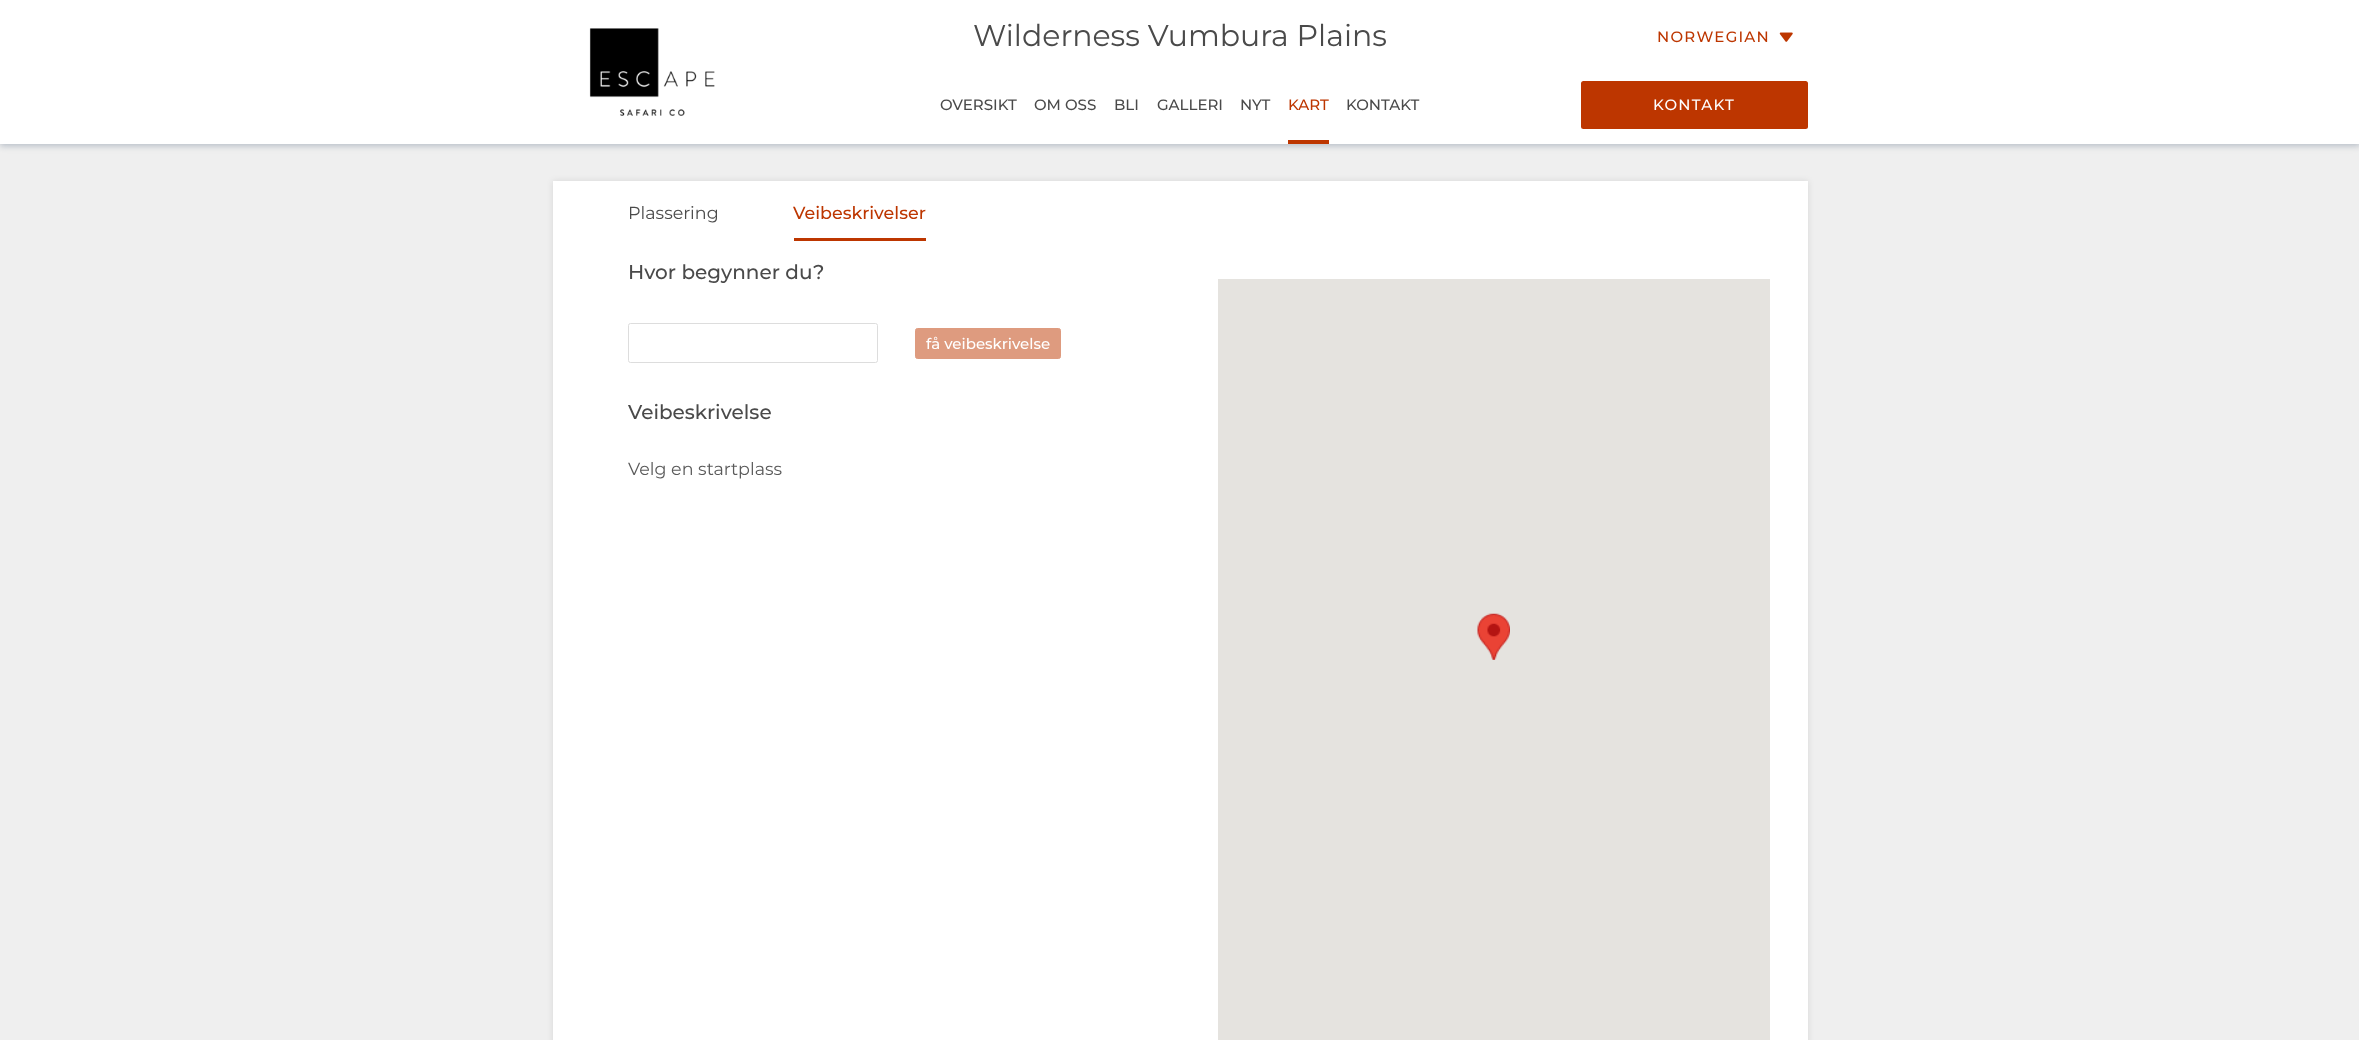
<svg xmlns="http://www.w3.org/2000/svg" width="2359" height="1040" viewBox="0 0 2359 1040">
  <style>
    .t1 { font: 30px Montserrat; fill: #4a4a4a; }
    .t2 { font: 500 15px Montserrat; fill: #4a4a4a; }
    .t3 { font: 500 15px Montserrat; fill: #bd3600; }
    .t4 { font: 500 15px Montserrat; letter-spacing: 1.25px; fill: #bd3600; }
    .t5 { font: 500 15px Montserrat; letter-spacing: 1.25px; fill: #fff; }
    .t6 { font: 17.5px Montserrat; fill: #4a4a4a; }
    .t7 { font: 500 17.5px Montserrat; fill: #bd3600; }
    .t8 { font: 500 20px Montserrat; fill: #4a4a4a; }
    .t9 { font: 500 15px Montserrat; fill: #fff; }
    .t10 { font: 17.5px Montserrat; fill: #5a5a5a; }
  </style>
  <rect width="100%" height="100%" fill="#efefef"/>
  <rect x="0" y="3" width="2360" height="143" fill="#7f8ea080" filter="blur(3px)"/>
  <rect x="0" y="0" width="2359" height="144" fill="#fff"/>
  <image x="589" y="28" width="126" height="88" href="images/1.png"/>
  <text x="973" y="46" class="t1">Wilderness Vumbura Plains</text>
  <text x="940" y="110" class="t2">OVERSIKT</text>
  <text x="1034" y="110" class="t2">OM OSS</text>
  <text x="1114" y="110" class="t2">BLI</text>
  <text x="1157" y="110" class="t2">GALLERI</text>
  <text x="1240" y="110" class="t2">NYT</text>
  <text x="1288" y="110" class="t3">KART</text>
  <rect x="1288" y="140" width="41" height="4" fill="#bd3600"/>
  <text x="1346" y="110" class="t2">KONTAKT</text>
  <text x="1657" y="42" class="t4">NORWEGIAN</text>
  <image x="1779" y="32" width="14" height="10" href="images/2.png"/>
  <rect x="1581" y="81" width="227" height="48" rx="2.5" fill="#bd3600"/>
  <text x="1653" y="110" class="t5">KONTAKT</text>
  <rect x="553" y="181" width="1255" height="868" fill="#0000001a" filter="blur(3px)"/>
  <rect x="553" y="181" width="1255" height="859" fill="#fff"/>
  <text x="628" y="219" class="t6">Plassering</text>
  <text x="793" y="219" class="t7">Veibeskrivelser</text>
  <rect x="794" y="238" width="132" height="3" fill="#bd3600"/>
  <text x="628" y="279" class="t8">Hvor begynner du?</text>
  <rect x="628.5" y="323.5" width="249" height="39" rx="2" fill="none" stroke="#ddd"/>
  <rect x="915.5" y="328.5" width="145" height="30" rx="2" fill="#de9b7f" stroke="#de9b7f"/>
  <text x="926" y="349" class="t9">få veibeskrivelse</text>
  <text x="628" y="419" class="t8">Veibeskrivelse</text>
  <text x="628" y="475" class="t10">Velg en startplass</text>
  <rect x="1218" y="279" width="552" height="761" fill="#e5e3df"/>
  <image x="1477" y="613" width="33" height="47" href="images/3.png"/>
</svg>
